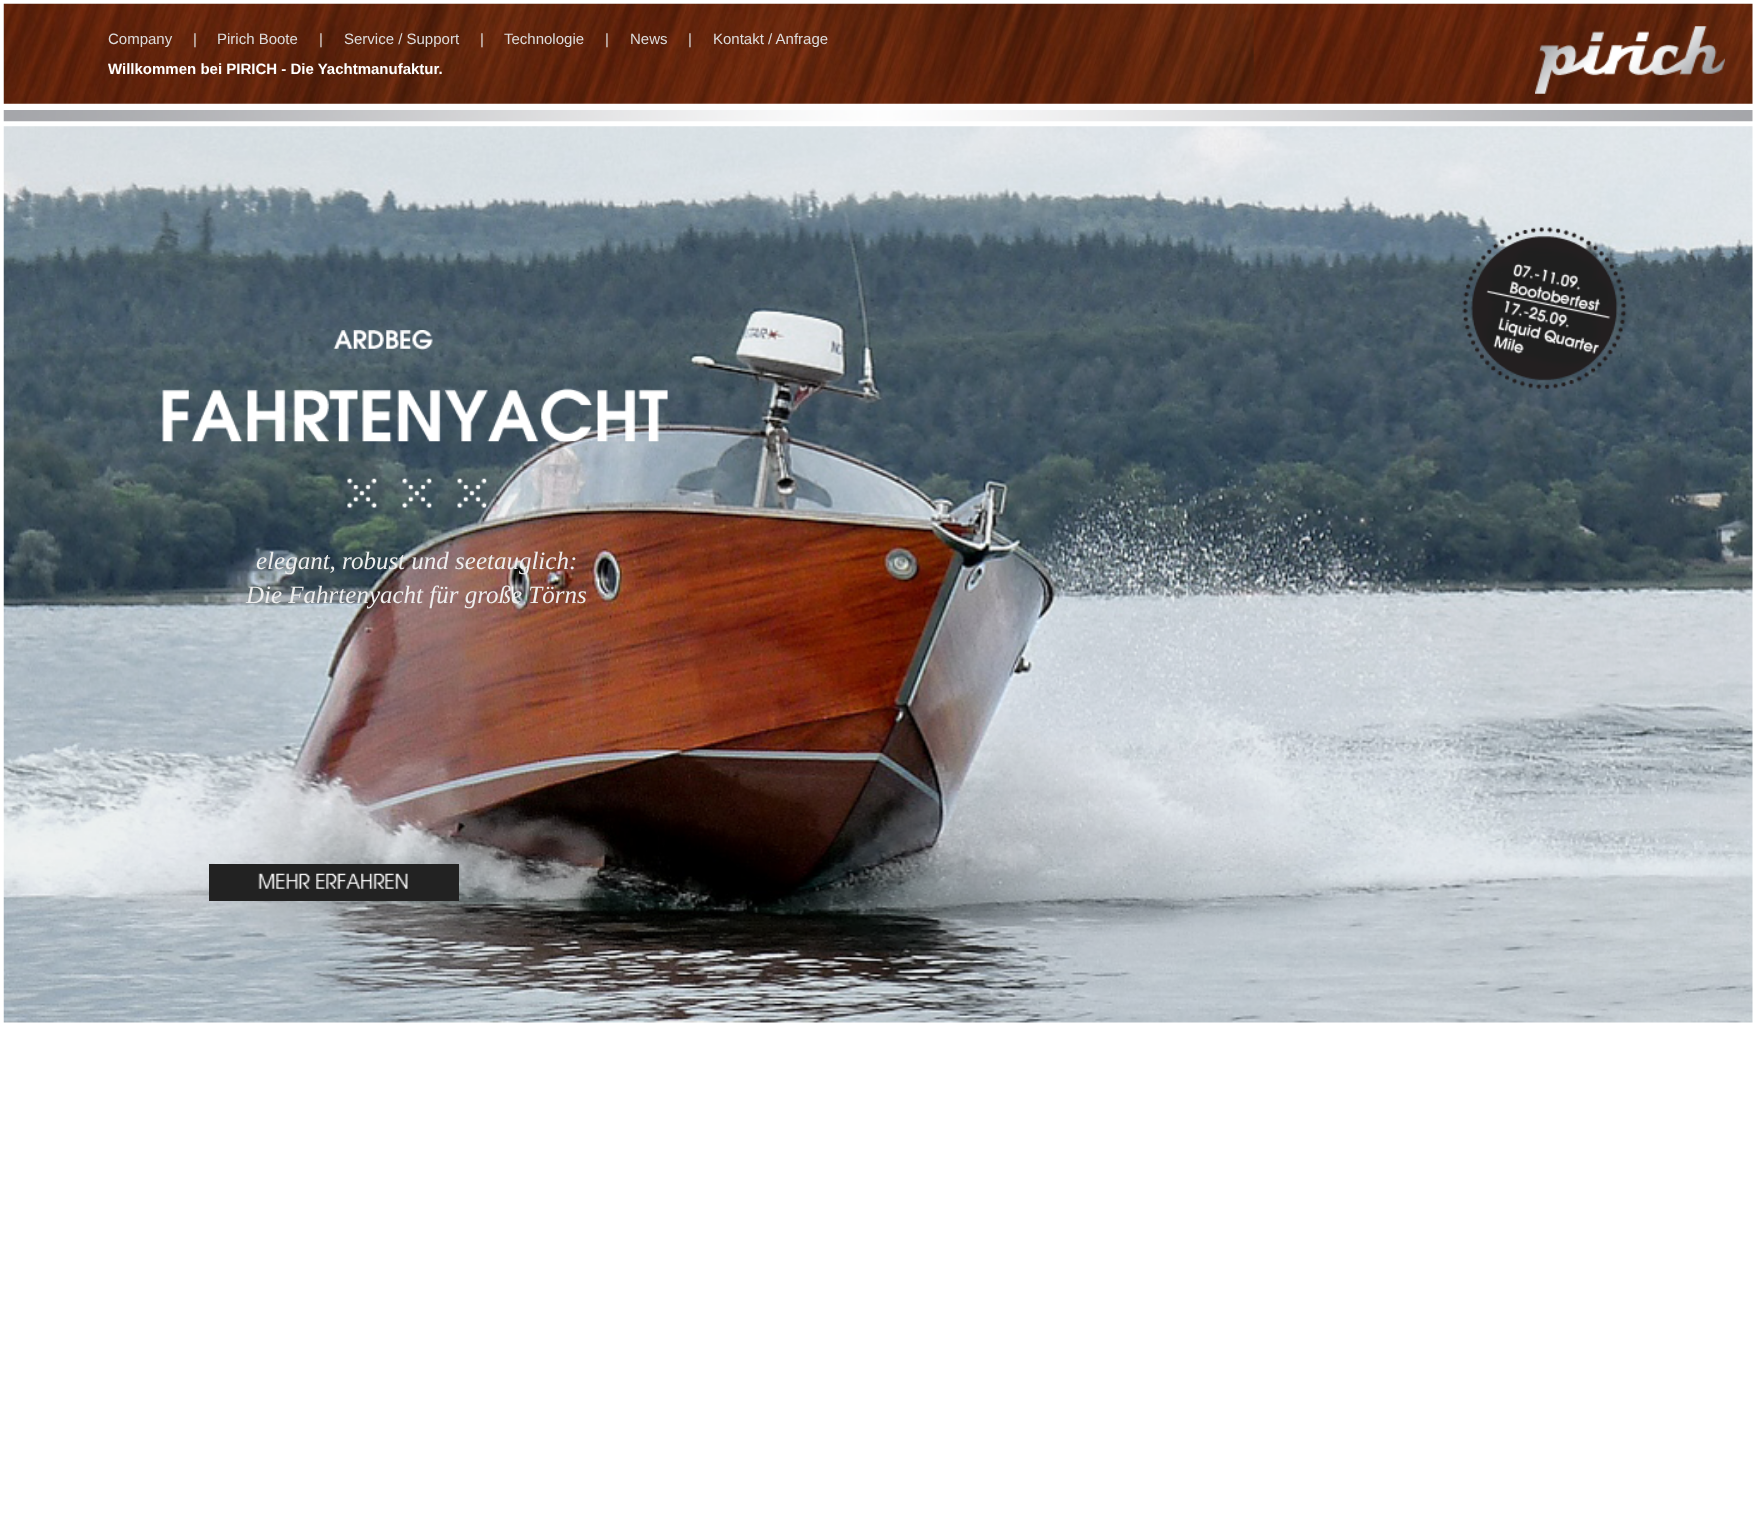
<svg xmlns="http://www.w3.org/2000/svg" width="1756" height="1540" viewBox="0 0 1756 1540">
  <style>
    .t1 { font: 15px Liberation Sans; fill: #ddd; }
    .t2 { font: bold 15px Liberation Sans; fill: #fff; }
    .t3 { font: italic 25px Liberation Serif; fill: #eee; }
  </style>
  <rect width="100%" height="100%" fill="#fff"/>
  <image x="3" y="3" width="1750" height="101" href="images/1.png"/>
  <text x="108" y="44" class="t1">Company</text>
  <text x="193" y="44" class="t1">|</text>
  <text x="217" y="44" class="t1">Pirich Boote</text>
  <text x="319" y="44" class="t1">|</text>
  <text x="344" y="44" class="t1">Service / Support</text>
  <text x="480" y="44" class="t1">|</text>
  <text x="504" y="44" class="t1">Technologie</text>
  <text x="605" y="44" class="t1">|</text>
  <text x="630" y="44" class="t1">News</text>
  <text x="688" y="44" class="t1">|</text>
  <text x="713" y="44" class="t1">Kontakt / Anfrage</text>
  <text x="108" y="74" class="t2">Willkommen bei PIRICH - Die Yachtmanufaktur.</text>
  <image x="1535" y="26" width="190" height="68" href="images/2.png"/>
  <image x="3" y="110" width="1750" height="12" href="images/3.png"/>
  <image x="3" y="126" width="1750" height="897" href="images/4.png"/>
  <image x="1462" y="227" width="165" height="162" href="images/5.png"/>
  <image x="333" y="330" width="100" height="20" href="images/6.png"/>
  <image x="162" y="388" width="506" height="54" href="images/7.png"/>
  <image x="347" y="478" width="140" height="30" href="images/8.png"/>
  <text x="256" y="569" class="t3">elegant, robust und seetauglich:</text>
  <text x="246" y="603" class="t3">Die Fahrtenyacht für große Törns</text>
  <rect x="209" y="864" width="250" height="37" fill="#222"/>
  <image x="258" y="873" width="150" height="16" href="images/9.png"/>
</svg>
